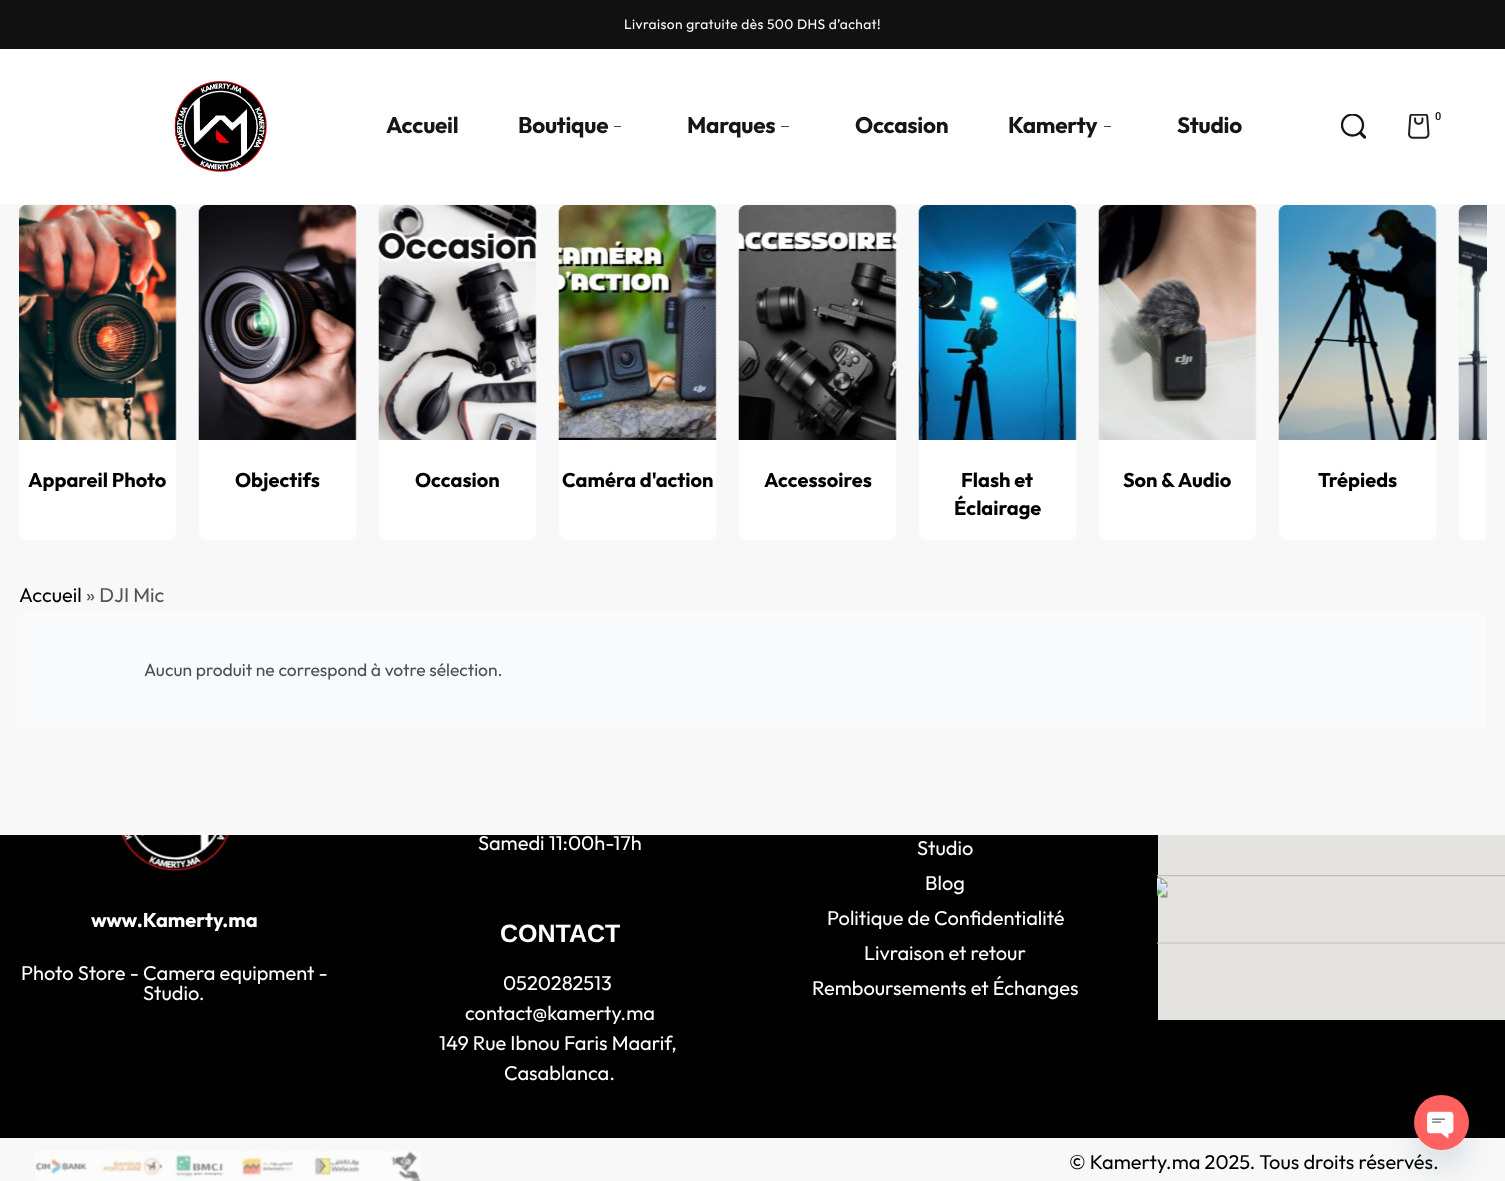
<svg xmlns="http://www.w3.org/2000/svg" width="1505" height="1181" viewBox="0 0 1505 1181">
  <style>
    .t1 { font: 100 13.75px 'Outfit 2'; letter-spacing: 0.4px; fill: #fff; }
    .t2 { font: 100 22.5px Outfit; letter-spacing: -0.25px; fill: #161616; }
    .t3 { font: 600 11px Roboto; fill: #1f1f1f; }
    .t4 { font: 100 20px Outfit; fill: #000; }
    .t5 { font: 100 20px 'Outfit 2'; fill: #000; }
    .t6 { font: 100 20px 'Outfit 2'; fill: #535557; }
    .t7 { font: 100 17.5px 'Outfit 2'; fill: #484f56; }
    .t8 { font: 100 20px Outfit; fill: #fff; }
    .t9 { font: 100 20px 'Outfit 2'; fill: #fff; }
    .t10 { font: bold 25px Liberation Sans; fill: #fff; }
  </style>
  <rect width="100%" height="100%" fill="#f8f8f8"/>
  <rect x="0" y="0" width="1505" height="49" fill="#111"/>
  <text x="624" y="29" class="t1">Livraison gratuite dès 500 DHS d’achat!</text>
  <rect x="0" y="49" width="1505" height="155" fill="#fff"/>
  <image x="174" y="81" width="93" height="91" href="images/1.png"/>
  <text x="386" y="133" class="t2">Accueil</text>
  <text x="518" y="133" class="t2">Boutique</text>
  <rect x="614" y="126" width="7" height="1" fill="#454545"/>
  <text x="687" y="133" class="t2">Marques</text>
  <rect x="781" y="126" width="8" height="1" fill="#454545"/>
  <text x="855" y="133" class="t2">Occasion</text>
  <text x="1008" y="133" class="t2">Kamerty</text>
  <rect x="1104" y="126" width="7" height="1" fill="#454545"/>
  <text x="1177" y="133" class="t2">Studio</text>
  <image x="1341" y="114" width="25" height="25" href="images/2.png"/>
  <image x="1408" y="114" width="22" height="25" href="images/3.png"/>
  <text x="1435" y="120" class="t3">0</text>
  <rect x="19" y="205" width="157" height="335" rx="8" fill="#fff"/>
  <image x="19" y="205" width="158" height="235" href="images/4.png"/>
  <text x="28" y="487" class="t4">Appareil Photo</text>
  <rect x="199" y="205" width="157" height="335" rx="8" fill="#fff"/>
  <image x="198" y="205" width="159" height="235" href="images/5.png"/>
  <text x="235" y="487" class="t4">Objectifs</text>
  <rect x="379" y="205" width="157" height="335" rx="8" fill="#fff"/>
  <image x="378" y="205" width="159" height="235" href="images/6.png"/>
  <text x="415" y="487" class="t4">Occasion</text>
  <rect x="559" y="205" width="157" height="335" rx="8" fill="#fff"/>
  <image x="558" y="205" width="159" height="235" href="images/7.png"/>
  <text x="562" y="487" class="t4">Caméra d'action</text>
  <rect x="739" y="205" width="157" height="335" rx="8" fill="#fff"/>
  <image x="738" y="205" width="159" height="235" href="images/8.png"/>
  <text x="764" y="487" class="t4">Accessoires</text>
  <rect x="919" y="205" width="157" height="335" rx="8" fill="#fff"/>
  <image x="918" y="205" width="159" height="235" href="images/9.png"/>
  <text x="961" y="487" class="t4">Flash et</text>
  <text x="954" y="515" class="t4">Éclairage</text>
  <rect x="1099" y="205" width="157" height="335" rx="8" fill="#fff"/>
  <image x="1098" y="205" width="159" height="235" href="images/10.png"/>
  <text x="1123" y="487" class="t4">Son &amp; Audio</text>
  <rect x="1279" y="205" width="157" height="335" rx="8" fill="#fff"/>
  <image x="1278" y="205" width="159" height="235" href="images/11.png"/>
  <text x="1318" y="487" class="t4">Trépieds</text>
  <path d="M1467 205H1486V540H1467C1462.5 540 1459 536.5 1459 532V213C1459 208.5 1462.5 205 1467 205Z" fill="#fff"/>
  <image x="1458" y="205" width="29" height="235" href="images/12.png"/>
  <text x="19" y="602" class="t5">Accueil</text>
  <text x="86" y="602" class="t6">» DJI Mic</text>
  <rect x="19" y="611" width="1467" height="118" rx="2.5" fill="#f9fafb"/>
  <text x="144" y="676" class="t7">Aucun produit ne correspond à votre sélection.</text>
  <rect x="0" y="835" width="1505" height="303" fill="#000"/>
  <image x="120" y="835" width="110" height="36" href="images/13.png"/>
  <text x="91" y="927" class="t8">www.Kamerty.ma</text>
  <text x="21" y="980" class="t9">Photo Store - Camera equipment -</text>
  <text x="143" y="1000" class="t9">Studio.</text>
  <text x="478" y="850" class="t9">Samedi 11:00h-17h</text>
  <text x="500" y="942" class="t10">CONTACT</text>
  <text x="503" y="990" class="t9">0520282513</text>
  <text x="465" y="1020" class="t9">contact@kamerty.ma</text>
  <text x="439" y="1050" class="t9">149 Rue Ibnou Faris Maarif,</text>
  <text x="504" y="1080" class="t9">Casablanca.</text>
  <text x="917" y="855" class="t9">Studio</text>
  <text x="925" y="890" class="t9">Blog</text>
  <text x="827" y="925" class="t9">Politique de Confidentialité</text>
  <text x="864" y="960" class="t9">Livraison et retour</text>
  <text x="812" y="995" class="t9">Remboursements et Échanges</text>
  <image x="1157" y="835" width="348" height="185" href="images/14.png"/>
  <image x="35" y="1151" width="386" height="30" href="images/15.png"/>
  <text x="1069" y="1169" class="t5">© Kamerty.ma 2025. Tous droits réservés.</text>
  <rect x="1414" y="1115" width="55" height="55" rx="27.5" fill="#49687e29" filter="blur(15px)"/>
  <circle cx="1441.5" cy="1122.5" r="27.5" fill="#ff6060"/>
  <image x="1427" y="1111" width="27" height="28" href="images/16.png"/>
</svg>
